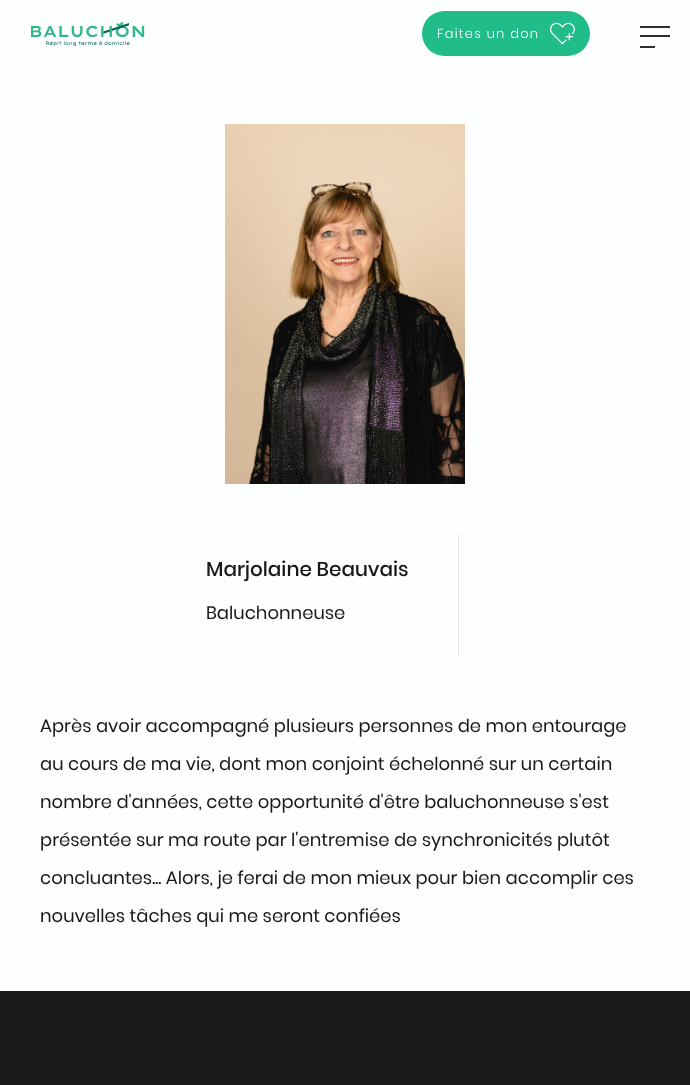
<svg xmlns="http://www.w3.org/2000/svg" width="690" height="1085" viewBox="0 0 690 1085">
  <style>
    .t1 { font: 300 13px Poppins; letter-spacing: 1.25px; fill: #fdfefe; }
    .t2 { font: 500 20px Poppins; fill: #191919; }
    .t3 { font: 18px Poppins; fill: #191919; }
  </style>
  <rect width="100%" height="100%" fill="#fdfefe"/>
  <rect x="0" y="72" width="690" height="1" fill="#f8f8f8"/>
  <image x="31" y="21" width="114" height="25" href="images/1.png"/>
  <rect x="640" y="26" width="30" height="2" fill="#2f2f2f"/>
  <rect x="640" y="35" width="30" height="2" fill="#2f2f2f"/>
  <rect x="640" y="46" width="15" height="2" fill="#2f2f2f"/>
  <rect x="422" y="11" width="168" height="45" rx="22.5" fill="#20bc8a"/>
  <text x="437" y="38" class="t1">Faites un don</text>
  <image x="550" y="22" width="25" height="23" href="images/2.png"/>
  <image x="225" y="124" width="240" height="360" href="images/3.png"/>
  <rect x="458" y="534" width="1" height="123" fill="#e3e3e3"/>
  <text x="206" y="576" class="t2">Marjolaine Beauvais</text>
  <text x="206" y="619" class="t3">Baluchonneuse</text>
  <text x="40" y="732" class="t3">Après avoir accompagné plusieurs personnes de mon entourage</text>
  <text x="40" y="770" class="t3">au cours de ma vie, dont mon conjoint échelonné sur un certain</text>
  <text x="40" y="808" class="t3">nombre d'années, cette opportunité d'être baluchonneuse s'est</text>
  <text x="40" y="846" class="t3">présentée sur ma route par l'entremise de synchronicités plutôt</text>
  <text x="40" y="884" class="t3">concluantes... Alors, je ferai de mon mieux pour bien accomplir ces</text>
  <text x="40" y="922" class="t3">nouvelles tâches qui me seront confiées</text>
  <rect x="0" y="991" width="690" height="94" fill="#191919"/>
</svg>
